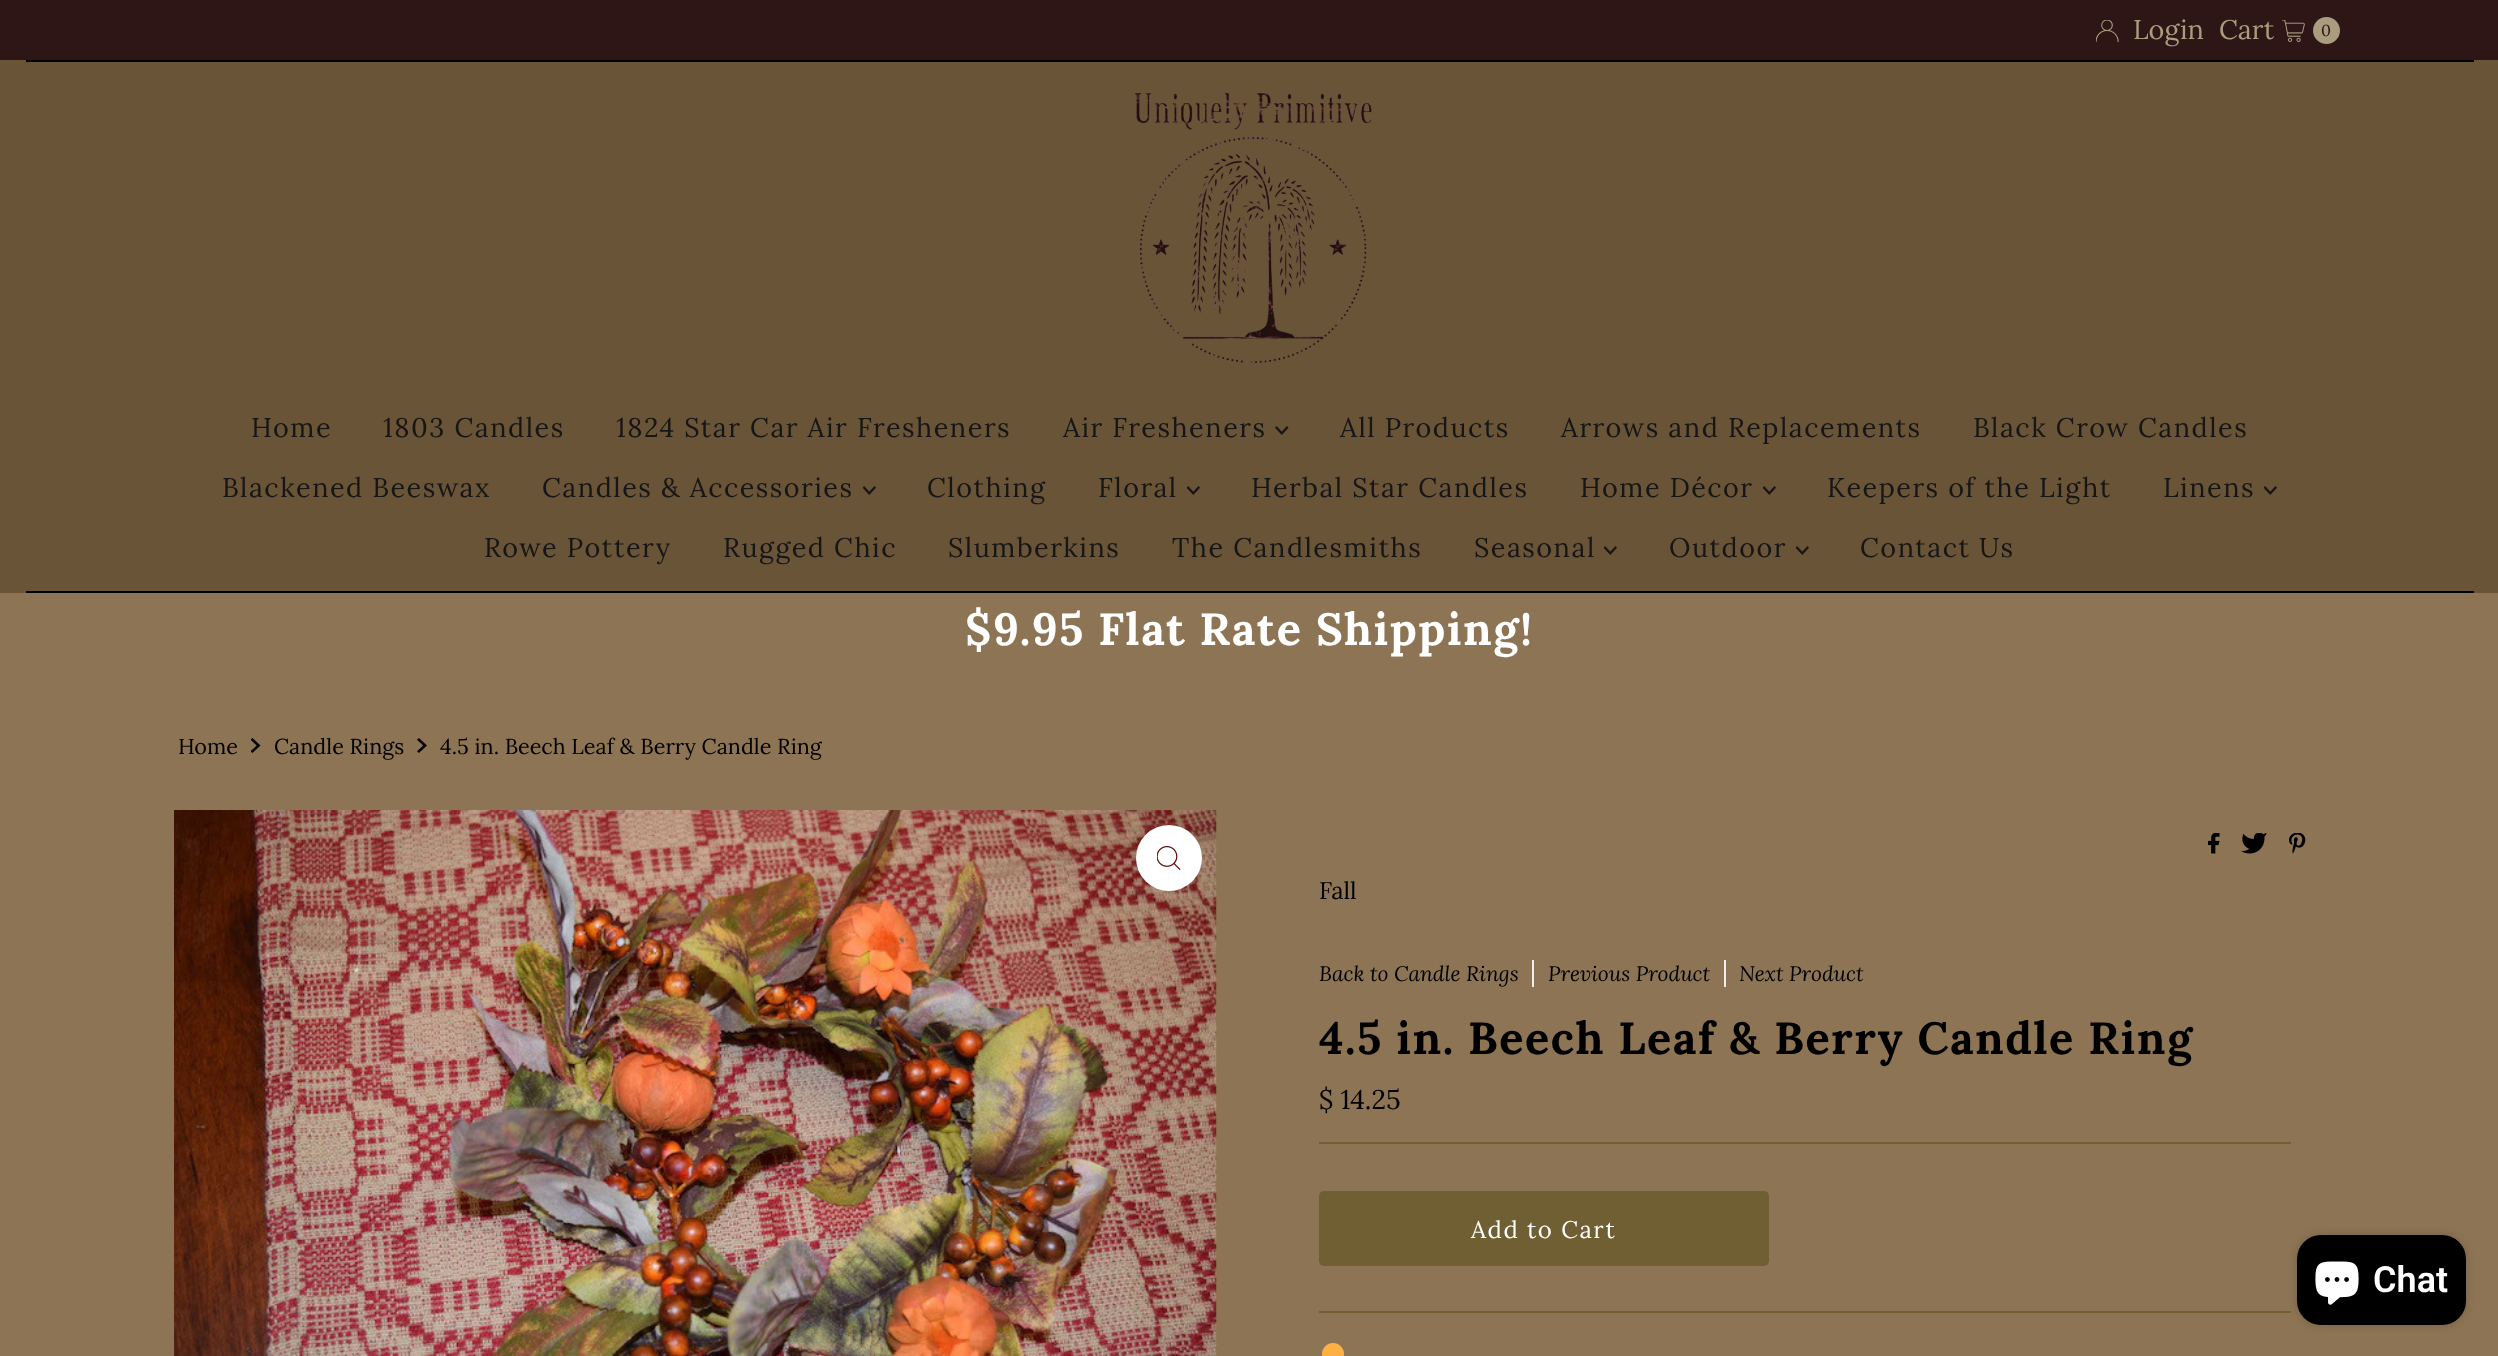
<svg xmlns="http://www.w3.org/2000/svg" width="2498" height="1356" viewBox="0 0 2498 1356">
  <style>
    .t1 { font: 27px Lora; fill: #aa9c7e; }
    .t2 { font: 16px Lora; fill: #2f1616; }
    .t3 { font: 27px Lora; letter-spacing: 1.5px; fill: #161616; }
    .t4 { font: bold 45px Lora; letter-spacing: 1.5px; fill: #fff; }
    .t5 { font: 21.6px Lora; fill: #000; }
    .t6 { font: 24px Lora; fill: #000; }
    .t7 { font: italic 21px Lora; fill: #000; }
    .t8 { font: bold 45px Lora; letter-spacing: 1.5px; fill: #000; }
    .t9 { font: 27px Lora; fill: #000; }
    .t10 { font: 24px Lora; letter-spacing: 1.5px; fill: #fff; }
    .t11 { font: 600 36px Roboto; fill: #fff; }
  </style>
  <rect width="100%" height="100%" fill="#8c7454"/>
  <rect x="0" y="0" width="2498" height="60" fill="#2f1616"/>
  <image x="2096" y="20" width="23" height="22" href="images/1.png"/>
  <text x="2133" y="39" class="t1">Login</text>
  <text x="2219" y="39" class="t1">Cart</text>
  <image x="2282" y="20" width="23" height="22" href="images/2.png"/>
  <circle cx="2326.5" cy="30.5" r="13.5" fill="#aa9c7e"/>
  <text x="2321" y="36" class="t2">0</text>
  <rect x="0" y="60" width="2498" height="533" fill="#6a5437"/>
  <rect x="26" y="60" width="2448" height="2" fill="#000"/>
  <image x="1134" y="92" width="238" height="271" href="images/3.png"/>
  <text x="251" y="437" class="t3">Home</text>
  <text x="383" y="437" class="t3">1803 Candles</text>
  <text x="616" y="437" class="t3">1824 Star Car Air Fresheners</text>
  <text x="1063" y="437" class="t3">Air Fresheners</text>
  <image x="1275" y="426" width="14" height="9" href="images/4.png"/>
  <text x="1340" y="437" class="t3">All Products</text>
  <text x="1561" y="437" class="t3">Arrows and Replacements</text>
  <text x="1973" y="437" class="t3">Black Crow Candles</text>
  <text x="222" y="497" class="t3">Blackened Beeswax</text>
  <text x="542" y="497" class="t3">Candles &amp; Accessories</text>
  <image x="863" y="486" width="13" height="9" href="images/5.png"/>
  <text x="927" y="497" class="t3">Clothing</text>
  <text x="1098" y="497" class="t3">Floral</text>
  <image x="1187" y="486" width="13" height="9" href="images/5.png"/>
  <text x="1251" y="497" class="t3">Herbal Star Candles</text>
  <text x="1580" y="497" class="t3">Home Décor</text>
  <image x="1763" y="486" width="13" height="9" href="images/5.png"/>
  <text x="1827" y="497" class="t3">Keepers of the Light</text>
  <text x="2163" y="497" class="t3">Linens</text>
  <image x="2264" y="486" width="13" height="9" href="images/5.png"/>
  <text x="484" y="557" class="t3">Rowe Pottery</text>
  <text x="723" y="557" class="t3">Rugged Chic</text>
  <text x="948" y="557" class="t3">Slumberkins</text>
  <text x="1172" y="557" class="t3">The Candlesmiths</text>
  <text x="1474" y="557" class="t3">Seasonal</text>
  <image x="1604" y="546" width="13" height="9" href="images/5.png"/>
  <text x="1669" y="557" class="t3">Outdoor</text>
  <image x="1796" y="546" width="13" height="9" href="images/5.png"/>
  <text x="1860" y="557" class="t3">Contact Us</text>
  <rect x="26" y="591" width="2448" height="2" fill="#000"/>
  <text x="965" y="645" class="t4">$9.95 Flat Rate Shipping!</text>
  <text x="178" y="754" class="t5">Home</text>
  <image x="251" y="738" width="10" height="15" href="images/6.png"/>
  <text x="274" y="754" class="t5">Candle Rings</text>
  <image x="417" y="738" width="10" height="15" href="images/7.png"/>
  <text x="440" y="754" class="t5">4.5 in. Beech Leaf &amp; Berry Candle Ring</text>
  <image x="174" y="810" width="1043" height="546" href="images/8.png"/>
  <circle cx="1169" cy="858" r="33" fill="#fff"/>
  <image x="1157" y="846" width="24" height="24" href="images/9.png"/>
  <image x="2208" y="833" width="12" height="21" href="images/10.png"/>
  <image x="2241" y="833" width="26" height="21" href="images/11.png"/>
  <image x="2289" y="833" width="17" height="21" href="images/12.png"/>
  <text x="1319" y="899" class="t6">Fall</text>
  <text x="1319" y="981" class="t7">Back to Candle Rings</text>
  <rect x="1532" y="960" width="2" height="27" fill="#eee"/>
  <text x="1548" y="981" class="t7">Previous Product</text>
  <rect x="1724" y="960" width="2" height="27" fill="#eee"/>
  <text x="1739" y="981" class="t7">Next Product</text>
  <text x="1319" y="1054" class="t8">4.5 in. Beech Leaf &amp; Berry Candle Ring</text>
  <rect x="1319" y="1142" width="972" height="2" fill="#715f34"/>
  <text x="1319" y="1109" class="t9">$ 14.25</text>
  <rect x="1319" y="1311" width="972" height="2" fill="#715f34"/>
  <rect x="1319" y="1191" width="450" height="75" rx="5" fill="#715f34"/>
  <text x="1471" y="1238" class="t10">Add to Cart</text>
  <circle cx="1333" cy="1354" r="11" fill="#ffb042"/>
  <rect x="2297" y="1235" width="169" height="90" rx="24" fill="#00000026" filter="blur(4px)"/>
  <rect x="2297" y="1235" width="169" height="90" rx="24" fill="#000"/>
  <image x="2315" y="1261" width="44" height="44" href="images/13.png"/>
  <text x="2373" y="1292" class="t11">Chat</text>
</svg>
